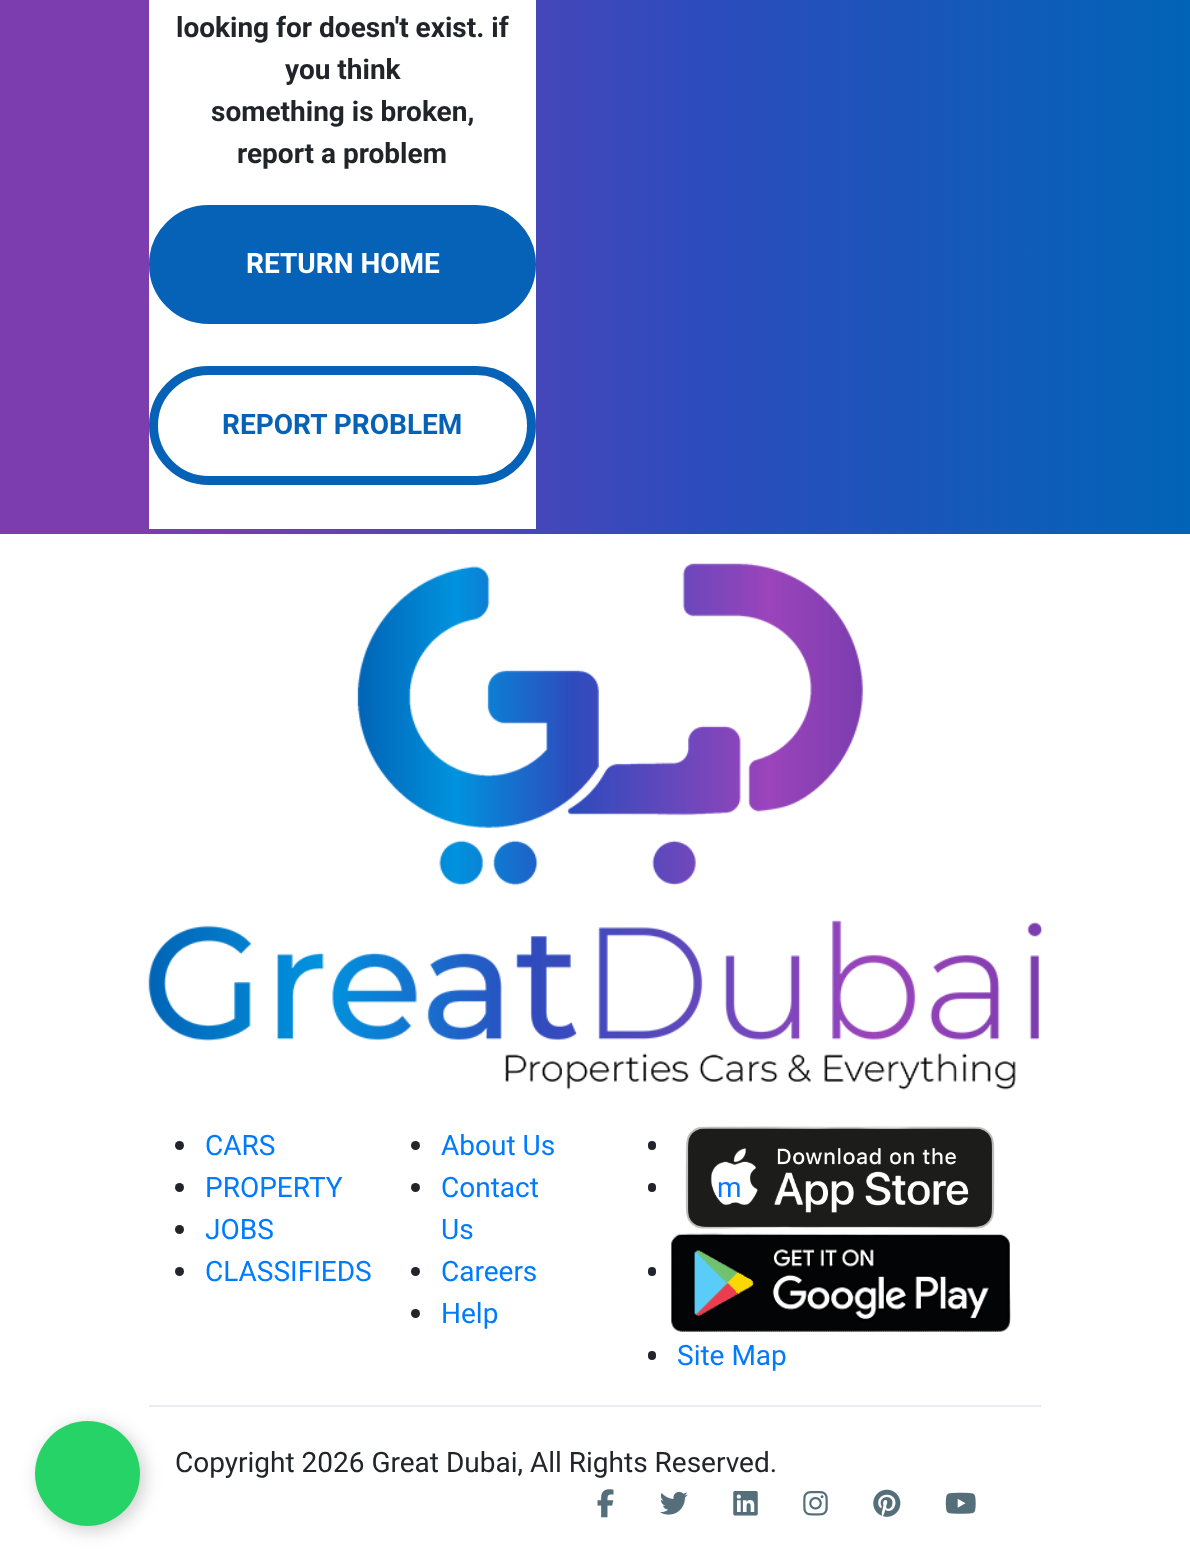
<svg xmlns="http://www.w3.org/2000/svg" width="1190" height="1560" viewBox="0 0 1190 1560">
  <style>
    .t1 { font: bold 28px Roboto; fill: #212529; }
    .t2 { font: bold 28px Roboto; fill: #fff; }
    .t3 { font: bold 28px Roboto; fill: #0662b7; }
    .t4 { font: 28px Roboto; fill: #007bff; }
    .t5 { font: 28px Roboto; fill: #212529; }
  </style>
  <defs>
    <linearGradient id="g1" gradientUnits="userSpaceOnUse" x1="0" y1="-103" x2="1190" y2="-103"><stop offset="0.14" stop-color="#7c3dae"/><stop offset="0.58" stop-color="#2e4bbd"/><stop offset="1" stop-color="#0164b6"/></linearGradient>
    <linearGradient id="g2" gradientUnits="userSpaceOnUse" x1="0" y1="531" x2="1190" y2="531"><stop offset="0.14" stop-color="#7c3dae"/><stop offset="0.58" stop-color="#2e4bbd"/><stop offset="1" stop-color="#0164b6"/></linearGradient>
  </defs>
  <rect width="100%" height="100%" fill="#fff"/>
  <rect x="0" y="0" width="1190" height="529" fill="url(#g1)"/>
  <rect x="149" y="0" width="387" height="529" fill="#fff"/>
  <text x="176" y="37" class="t1">looking for doesn't exist. if</text>
  <text x="285" y="79" class="t1">you think</text>
  <text x="211" y="121" class="t1">something is broken,</text>
  <text x="237" y="163" class="t1">report a problem</text>
  <rect x="153.5" y="209.5" width="378" height="110" rx="55" fill="#0662b7" stroke="#0662b7" stroke-width="9"/>
  <text x="246" y="273" class="t2">RETURN HOME</text>
  <rect x="153.5" y="370.5" width="378" height="110" rx="55" fill="none" stroke="#0662b7" stroke-width="9"/>
  <text x="222" y="434" class="t3">REPORT PROBLEM</text>
  <rect x="149" y="1405" width="892" height="2" fill="#e9edf3"/>
  <rect x="39" y="1425" width="105" height="105" rx="52.5" fill="#00000033" filter="blur(9px)"/>
  <circle cx="87.5" cy="1473.5" r="52.5" fill="#25d366"/>
  <rect x="0" y="529" width="1190" height="5" fill="url(#g2)"/>
  <image x="148" y="563" width="894" height="527" href="images/1.png"/>
  <circle cx="179.5" cy="1145.5" r="4.5" fill="#212529"/>
  <text x="205" y="1155" class="t4">CARS</text>
  <circle cx="179.5" cy="1187.5" r="4.5" fill="#212529"/>
  <text x="205" y="1197" class="t4">PROPERTY</text>
  <circle cx="179.5" cy="1229.5" r="4.5" fill="#212529"/>
  <text x="205" y="1239" class="t4">JOBS</text>
  <circle cx="179.5" cy="1271.5" r="4.5" fill="#212529"/>
  <text x="205" y="1281" class="t4">CLASSIFIEDS</text>
  <circle cx="415.5" cy="1145.5" r="4.5" fill="#212529"/>
  <text x="441" y="1155" class="t4">About Us</text>
  <circle cx="415.5" cy="1187.5" r="4.5" fill="#212529"/>
  <text x="441" y="1197" class="t4">Contact</text>
  <text x="441" y="1239" class="t4">Us</text>
  <circle cx="415.5" cy="1271.5" r="4.5" fill="#212529"/>
  <text x="441" y="1281" class="t4">Careers</text>
  <circle cx="415.5" cy="1313.5" r="4.5" fill="#212529"/>
  <text x="441" y="1323" class="t4">Help</text>
  <text x="717" y="1197" class="t4">m</text>
  <image x="685" y="1126" width="310" height="103" href="images/2.png"/>
  <image x="671" y="1232" width="340" height="100" href="images/3.png"/>
  <rect x="648" y="1141" width="8" height="9" rx="4" fill="#212529"/>
  <rect x="648" y="1183" width="8" height="9" rx="4" fill="#212529"/>
  <rect x="648" y="1267" width="8" height="9" rx="4" fill="#212529"/>
  <rect x="648" y="1351" width="8" height="9" rx="4" fill="#212529"/>
  <text x="677" y="1365" class="t4">Site Map</text>
  <text x="175" y="1472" class="t5">Copyright 2026 Great Dubai, All Rights Reserved.</text>
  <image x="597" y="1489" width="17" height="29" href="images/4.png"/>
  <image x="660" y="1491" width="28" height="24" href="images/5.png"/>
  <image x="733" y="1491" width="25" height="25" href="images/6.png"/>
  <image x="803" y="1491" width="25" height="25" href="images/7.png"/>
  <image x="873" y="1489" width="28" height="28" href="images/8.png"/>
  <image x="945" y="1492" width="31" height="22" href="images/9.png"/>
</svg>
